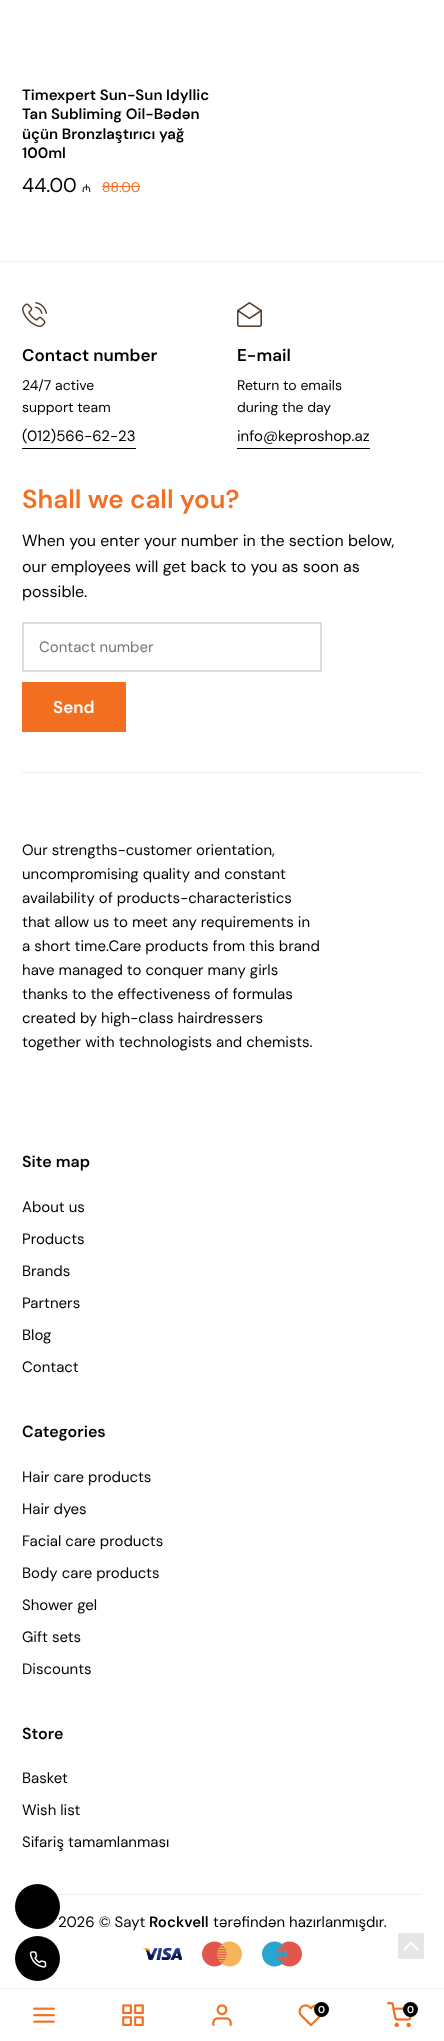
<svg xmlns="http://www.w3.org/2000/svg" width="444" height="2041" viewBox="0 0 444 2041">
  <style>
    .t1 { font: 600 15px DM Sans; fill: #000; }
    .t2 { font: 20px DM Sans; fill: #000; }
    .t3 { font: 11px Noto Sans; fill: #000; }
    .t4 { font: 14px DM Sans; fill: #f26f21; }
    .t5 { font: 600 17px DM Sans; fill: #000; }
    .t6 { font: 14px DM Sans; fill: #000; }
    .t7 { font: 15px DM Sans; fill: #000; }
    .t8 { font: 600 26px DM Sans; fill: #f26f21; }
    .t9 { font: 16px DM Sans; fill: #000; }
    .t10 { font: 15px DM Sans; fill: #757575; }
    .t11 { font: 600 17px DM Sans; fill: #fff; }
    .t12 { font: 600 16px DM Sans; fill: #000; }
    .t13 { font: 600 10px DM Sans; fill: #fff; }
  </style>
  <rect width="100%" height="100%" fill="#fff"/>
  <text x="22" y="100" class="t1">Timexpert Sun-Sun Idyllic</text>
  <text x="22" y="119" class="t1">Tan Subliming Oil-Bədən</text>
  <text x="22" y="139" class="t1">üçün Bronzlaştırıcı yağ</text>
  <text x="22" y="158" class="t1">100ml</text>
  <text x="22" y="192" class="t2">44.00</text>
  <text x="82" y="192" class="t3">₼</text>
  <text x="102" y="192" class="t4">88.00</text>
  <rect x="102" y="186" width="38" height="1" fill="#f26f21"/>
  <rect x="0" y="261" width="444" height="1" fill="#eee"/>
  <image x="22" y="302" width="25" height="25" href="images/1.png"/>
  <text x="22" y="361" class="t5">Contact number</text>
  <text x="22" y="390" class="t6">24/7 active</text>
  <text x="22" y="412" class="t6">support team</text>
  <rect x="22" y="448" width="114" height="1" fill="#000"/>
  <text x="22" y="441" class="t7">(012)566-62-23</text>
  <image x="237" y="302" width="25" height="25" href="images/2.png"/>
  <text x="237" y="361" class="t5">E-mail</text>
  <text x="237" y="390" class="t6">Return to emails</text>
  <text x="237" y="412" class="t6">during the day</text>
  <rect x="237" y="448" width="133" height="1" fill="#000"/>
  <text x="237" y="441" class="t7">info@keproshop.az</text>
  <text x="22" y="508" class="t8">Shall we call you?</text>
  <text x="22" y="546" class="t9">When you enter your number in the section below,</text>
  <text x="22" y="572" class="t9">our employees will get back to you as soon as</text>
  <text x="22" y="597" class="t9">possible.</text>
  <rect x="23" y="623" width="298" height="48" fill="none" stroke="#ddd" stroke-width="2"/>
  <text x="39" y="652" class="t10">Contact number</text>
  <rect x="22" y="682" width="104" height="50" fill="#f26f21"/>
  <text x="53" y="713" class="t11">Send</text>
  <rect x="22" y="772" width="400" height="1" fill="#eee"/>
  <text x="22" y="855" class="t7">Our strengths-customer orientation,</text>
  <text x="22" y="879" class="t7">uncompromising quality and constant</text>
  <text x="22" y="903" class="t7">availability of products-characteristics</text>
  <text x="22" y="927" class="t7">that allow us to meet any requirements in</text>
  <text x="22" y="951" class="t7">a short time.Care products from this brand</text>
  <text x="22" y="975" class="t7">have managed to conquer many girls</text>
  <text x="22" y="999" class="t7">thanks to the effectiveness of formulas</text>
  <text x="22" y="1023" class="t7">created by high-class hairdressers</text>
  <text x="22" y="1047" class="t7">together with technologists and chemists.</text>
  <text x="22" y="1167" class="t12">Site map</text>
  <text x="22" y="1212" class="t7">About us</text>
  <text x="22" y="1244" class="t7">Products</text>
  <text x="22" y="1276" class="t7">Brands</text>
  <text x="22" y="1308" class="t7">Partners</text>
  <text x="22" y="1340" class="t7">Blog</text>
  <text x="22" y="1372" class="t7">Contact</text>
  <text x="22" y="1437" class="t12">Categories</text>
  <text x="22" y="1482" class="t7">Hair care products</text>
  <text x="22" y="1514" class="t7">Hair dyes</text>
  <text x="22" y="1546" class="t7">Facial care products</text>
  <text x="22" y="1578" class="t7">Body care products</text>
  <text x="22" y="1610" class="t7">Shower gel</text>
  <text x="22" y="1642" class="t7">Gift sets</text>
  <text x="22" y="1674" class="t7">Discounts</text>
  <text x="22" y="1739" class="t12">Store</text>
  <text x="22" y="1783" class="t7">Basket</text>
  <text x="22" y="1815" class="t7">Wish list</text>
  <text x="22" y="1847" class="t7">Sifariş tamamlanması</text>
  <rect x="56" y="1894" width="366" height="1" fill="#eee"/>
  <text x="58" y="1927" class="t7">2026 © Sayt</text>
  <text x="149" y="1927" class="t1">Rockvell</text>
  <text x="213" y="1927" class="t7">tərəfindən hazırlanmışdır.</text>
  <image x="142" y="1947" width="40" height="14" href="images/3.png"/>
  <image x="202" y="1941" width="40" height="26" href="images/4.png"/>
  <image x="262" y="1941" width="40" height="26" href="images/5.png"/>
  <circle cx="37.5" cy="1906.5" r="22.5" fill="#000"/>
  <circle cx="37.5" cy="1958.5" r="22.5" fill="#000"/>
  <image x="29" y="1951" width="18" height="17" href="images/6.png"/>
  <rect x="398" y="1933" width="26" height="26" fill="#e6e6e6"/>
  <image x="403" y="1942" width="16" height="9" href="images/7.png"/>
  <rect x="0" y="1988" width="444" height="1" fill="#f0f2f5"/>
  <image x="33" y="2007" width="22" height="16" href="images/8.png"/>
  <image x="122" y="2004" width="22" height="22" href="images/9.png"/>
  <image x="212" y="2004" width="20" height="22" href="images/10.png"/>
  <image x="298" y="2004" width="24" height="23" href="images/11.png"/>
  <circle cx="321.5" cy="2009.5" r="7.5" fill="#000"/>
  <text x="318" y="2013" class="t13">0</text>
  <image x="387" y="2002" width="25" height="26" href="images/12.png"/>
  <circle cx="410.5" cy="2009.5" r="7.5" fill="#000"/>
  <text x="407" y="2013" class="t13">0</text>
</svg>
